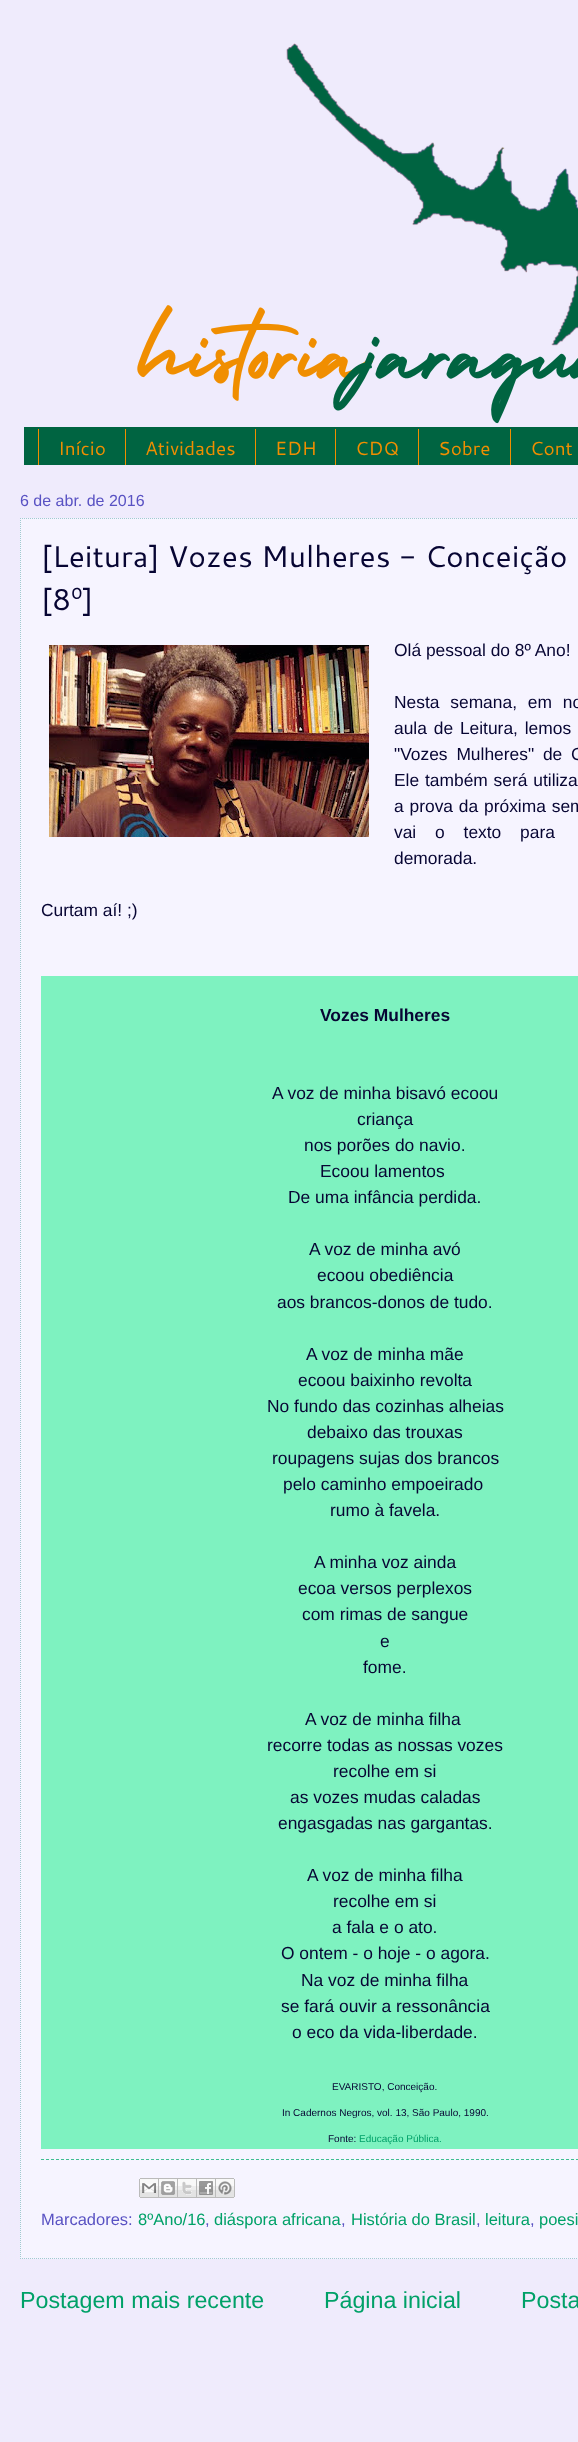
<svg xmlns="http://www.w3.org/2000/svg" width="578" height="2442" viewBox="0 0 578 2442">
  <style>
    .t1 { font: 19px Cantarell; fill: #f08e00; }
    .t2 { font: 16px Liberation Sans; fill: #5952c3; }
    .t3 { font: 30px Cantarell; fill: #070533; }
    .t4 { font: 17.4px Liberation Sans; fill: #070533; }
    .t5 { font: bold 17.4px Liberation Sans; fill: #070533; }
    .t6 { font: 10px Liberation Sans; fill: #070533; }
    .t7 { font: 10px Liberation Sans; fill: #00a168; }
    .t8 { font: 16.5px Liberation Sans; fill: #5952c3; }
    .t9 { font: 16.5px Liberation Sans; fill: #00a168; }
    .t10 { font: 23.25px Liberation Sans; fill: #00a168; }
  </style>
  <rect width="100%" height="100%" fill="#efebfc"/>
  <image x="137" y="43" width="441" height="381" href="images/1.png"/>
  <rect x="24" y="427" width="554" height="38" fill="#006441"/>
  <rect x="125" y="429" width="1" height="36" fill="#f08e00"/>
  <rect x="38" y="429" width="1" height="36" fill="#f08e00"/>
  <text x="58" y="455" class="t1">Início</text>
  <rect x="255" y="429" width="1" height="36" fill="#f08e00"/>
  <text x="145" y="455" class="t1">Atividades</text>
  <rect x="335" y="429" width="1" height="36" fill="#f08e00"/>
  <text x="275" y="455" class="t1">EDH</text>
  <rect x="418" y="429" width="1" height="36" fill="#f08e00"/>
  <text x="355" y="455" class="t1">CDQ</text>
  <rect x="510" y="429" width="1" height="36" fill="#f08e00"/>
  <text x="438" y="455" class="t1">Sobre</text>
  <text x="530" y="455" class="t1">Cont</text>
  <text x="20" y="506" class="t2">6 de abr. de 2016</text>
  <rect x="20" y="518" width="558" height="1741" fill="#f6f4ff"/>
  <path d="M20 518.5H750" fill="none" stroke="#a1cbd0" stroke-dasharray="1 1"/>
  <path d="M20 2258.5H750" fill="none" stroke="#a1cbd0" stroke-dasharray="1 1"/>
  <path d="M20.5 518V2259" fill="none" stroke="#a1cbd0" stroke-dasharray="1 1"/>
  <text x="41" y="567" class="t3">[Leitura] Vozes Mulheres - Conceição</text>
  <text x="41" y="610" class="t3">[8º]</text>
  <image x="49" y="645" width="320" height="192" href="images/2.png"/>
  <text x="394" y="656" class="t4">Olá pessoal do 8º Ano!</text>
  <text x="394" y="708" word-spacing="6" class="t4">Nesta semana, em no</text>
  <text x="394" y="734" word-spacing="2" class="t4">aula de Leitura, lemos</text>
  <text x="394" y="760" word-spacing="4" class="t4">"Vozes Mulheres" de C</text>
  <text x="394" y="786" word-spacing="1" class="t4">Ele também será utiliza</text>
  <text x="394" y="812" word-spacing="1" class="t4">a prova da próxima sem</text>
  <text x="394" y="838" word-spacing="14" class="t4">vai o texto para</text>
  <text x="394" y="864" class="t4">demorada.</text>
  <text x="41" y="916" class="t4">Curtam aí! ;)</text>
  <rect x="41" y="976" width="537" height="1173" fill="#7ef2c0"/>
  <text x="320" y="1021" class="t5">Vozes Mulheres</text>
  <text x="272" y="1099" class="t4">A voz de minha bisavó ecoou</text>
  <text x="357" y="1125" class="t4">criança</text>
  <text x="304" y="1151" class="t4">nos porões do navio.</text>
  <text x="320" y="1177" class="t4">Ecoou lamentos</text>
  <text x="288" y="1203" class="t4">De uma infância perdida.</text>
  <text x="309" y="1255" class="t4">A voz de minha avó</text>
  <text x="317" y="1281" class="t4">ecoou obediência</text>
  <text x="277" y="1308" class="t4">aos brancos-donos de tudo.</text>
  <text x="306" y="1360" class="t4">A voz de minha mãe</text>
  <text x="298" y="1386" class="t4">ecoou baixinho revolta</text>
  <text x="267" y="1412" class="t4">No fundo das cozinhas alheias</text>
  <text x="307" y="1438" class="t4">debaixo das trouxas</text>
  <text x="272" y="1464" class="t4">roupagens sujas dos brancos</text>
  <text x="283" y="1490" class="t4">pelo caminho empoeirado</text>
  <text x="330" y="1516" class="t4">rumo à favela.</text>
  <text x="314" y="1568" class="t4">A minha voz ainda</text>
  <text x="298" y="1594" class="t4">ecoa versos perplexos</text>
  <text x="302" y="1620" class="t4">com rimas de sangue</text>
  <text x="380" y="1647" class="t4">e</text>
  <text x="363" y="1673" class="t4">fome.</text>
  <text x="305" y="1725" class="t4">A voz de minha filha</text>
  <text x="267" y="1751" class="t4">recorre todas as nossas vozes</text>
  <text x="333" y="1777" class="t4">recolhe em si</text>
  <text x="290" y="1803" class="t4">as vozes mudas caladas</text>
  <text x="278" y="1829" class="t4">engasgadas nas gargantas.</text>
  <text x="307" y="1881" class="t4">A voz de minha filha</text>
  <text x="333" y="1907" class="t4">recolhe em si</text>
  <text x="332" y="1933" class="t4">a fala e o ato.</text>
  <text x="281" y="1959" class="t4">O ontem - o hoje - o agora.</text>
  <text x="301" y="1986" class="t4">Na voz de minha filha</text>
  <text x="281" y="2012" class="t4">se fará ouvir a ressonância</text>
  <text x="292" y="2038" class="t4">o eco da vida-liberdade.</text>
  <text x="332" y="2090" class="t6">EVARISTO, Conceição.</text>
  <text x="282" y="2116" class="t6">In Cadernos Negros, vol. 13, São Paulo, 1990.</text>
  <text x="328" y="2142" class="t6">Fonte:</text>
  <text x="359" y="2142" class="t7">Educação Pública.</text>
  <path d="M41 2159.5H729" fill="none" stroke="#3ebe91" stroke-dasharray="3 2"/>
  <image x="139" y="2178" width="20" height="20" href="images/3.png"/>
  <image x="159" y="2178" width="19" height="20" href="images/4.png"/>
  <image x="178" y="2178" width="19" height="20" href="images/5.png"/>
  <image x="197" y="2178" width="19" height="20" href="images/6.png"/>
  <image x="216" y="2178" width="19" height="20" href="images/7.png"/>
  <text x="41" y="2225" class="t8">Marcadores:</text>
  <text x="138" y="2225" class="t9">8ºAno/16</text>
  <text x="205" y="2225" class="t8">,</text>
  <text x="214" y="2225" class="t9">diáspora africana</text>
  <text x="341" y="2225" class="t8">,</text>
  <text x="351" y="2225" class="t9">História do Brasil</text>
  <text x="476" y="2225" class="t8">,</text>
  <text x="485" y="2225" class="t9">leitura</text>
  <text x="530" y="2225" class="t8">,</text>
  <text x="539" y="2225" class="t9">poesi</text>
  <text x="20" y="2308" class="t10">Postagem mais recente</text>
  <text x="324" y="2308" class="t10">Página inicial</text>
  <text x="521" y="2308" class="t10">Posta</text>
</svg>
